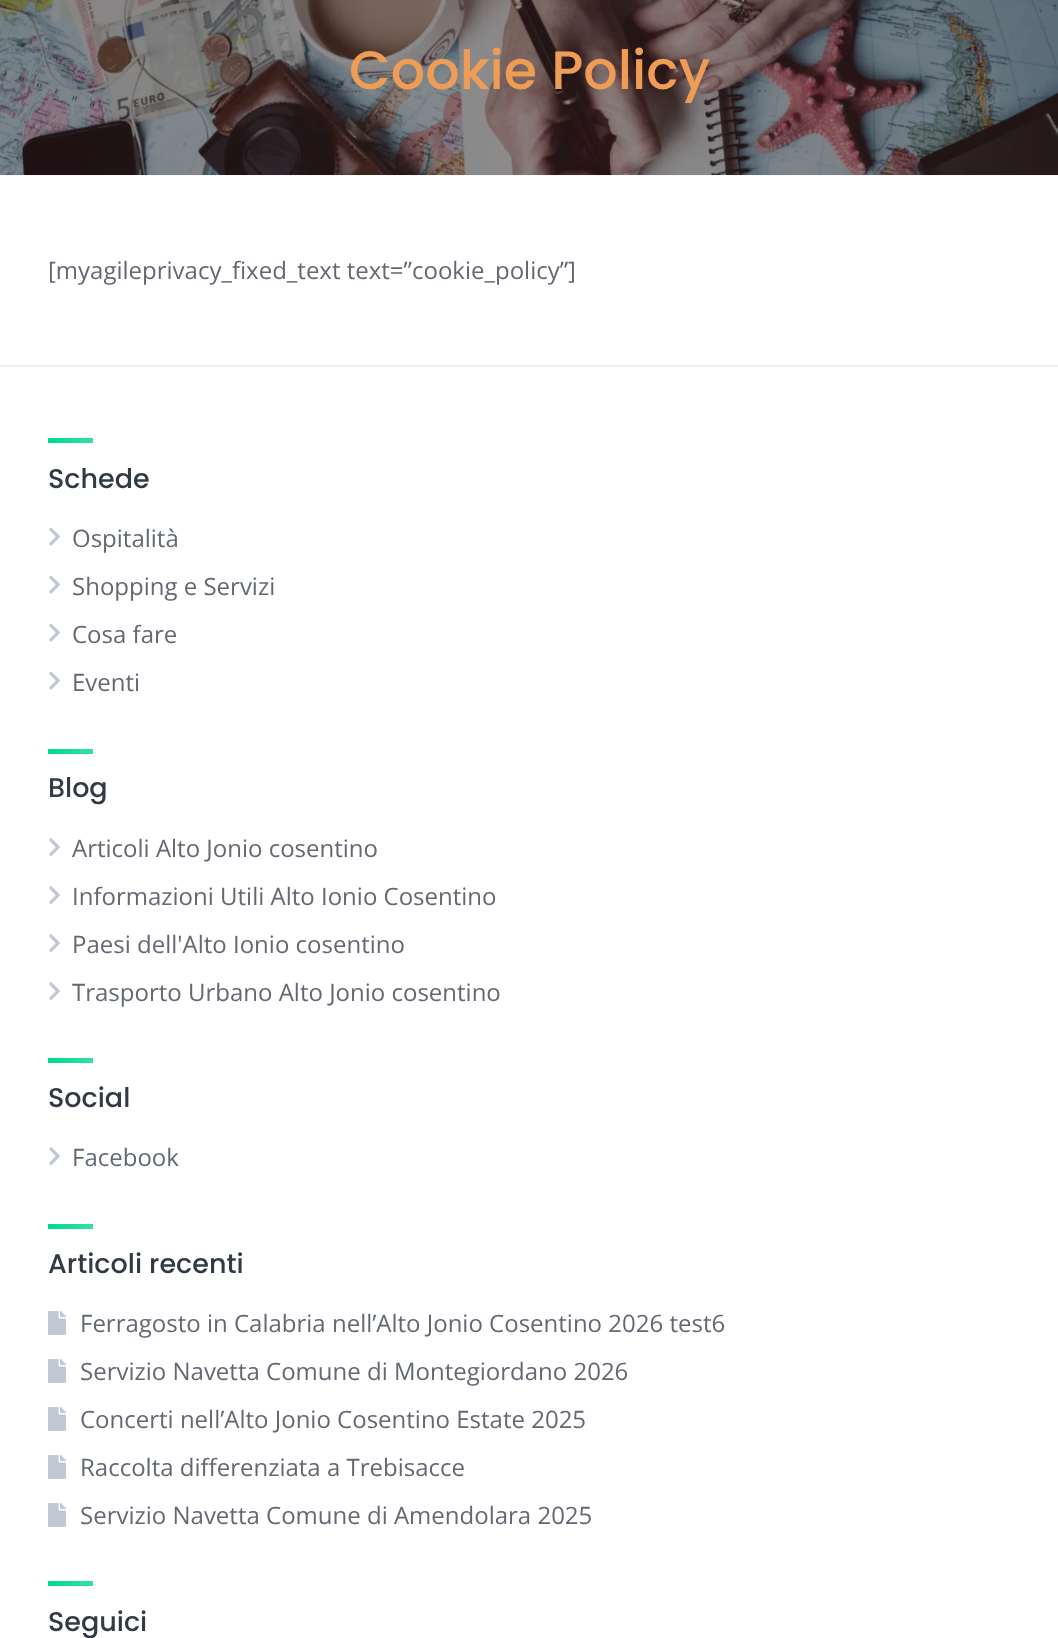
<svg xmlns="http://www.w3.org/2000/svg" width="1058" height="1638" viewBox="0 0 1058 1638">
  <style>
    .t1 { font: 500 54px Poppins; fill: #ef9d56; }
    .t2 { font: 24px Open Sans; fill: #636873; }
    .t3 { font: 500 27px Poppins; fill: #333a47; }
  </style>
  <defs>
    <linearGradient id="g1" gradientUnits="userSpaceOnUse" x1="48" y1="440" x2="93" y2="440"><stop offset="0" stop-color="#00d890"/><stop offset="1" stop-color="#33e0a6"/></linearGradient>
    <linearGradient id="g2" gradientUnits="userSpaceOnUse" x1="48" y1="751" x2="93" y2="751"><stop offset="0" stop-color="#00d890"/><stop offset="1" stop-color="#33e0a6"/></linearGradient>
    <linearGradient id="g3" gradientUnits="userSpaceOnUse" x1="48" y1="1060" x2="93" y2="1060"><stop offset="0" stop-color="#00d890"/><stop offset="1" stop-color="#33e0a6"/></linearGradient>
    <linearGradient id="g4" gradientUnits="userSpaceOnUse" x1="48" y1="1226" x2="93" y2="1226"><stop offset="0" stop-color="#00d890"/><stop offset="1" stop-color="#33e0a6"/></linearGradient>
    <linearGradient id="g5" gradientUnits="userSpaceOnUse" x1="48" y1="1583" x2="93" y2="1583"><stop offset="0" stop-color="#00d890"/><stop offset="1" stop-color="#33e0a6"/></linearGradient>
  </defs>
  <rect width="100%" height="100%" fill="#fff"/>
  <rect x="0" y="175" width="1058" height="1" fill="#f6f9fc"/>
  <image x="0" y="0" width="1058" height="175" href="images/1.png"/>
  <text x="349" y="89" class="t1">Cookie Policy</text>
  <text x="48" y="279" class="t2">[myagileprivacy_fixed_text text=”cookie_policy”]</text>
  <rect x="0" y="365" width="1058" height="2" fill="#eceff2"/>
  <rect x="48" y="438" width="45" height="5" fill="url(#g1)"/>
  <text x="48" y="488" class="t3">Schede</text>
  <image x="49" y="527" width="11" height="19" href="images/2.png"/>
  <text x="72" y="547" class="t2">Ospitalità</text>
  <image x="49" y="575" width="11" height="19" href="images/2.png"/>
  <text x="72" y="595" class="t2">Shopping e Servizi</text>
  <image x="49" y="623" width="11" height="19" href="images/2.png"/>
  <text x="72" y="643" class="t2">Cosa fare</text>
  <image x="49" y="671" width="11" height="19" href="images/2.png"/>
  <text x="72" y="691" class="t2">Eventi</text>
  <rect x="48" y="749" width="45" height="5" fill="url(#g2)"/>
  <text x="48" y="797" class="t3">Blog</text>
  <image x="49" y="838" width="11" height="18" href="images/3.png"/>
  <text x="72" y="857" class="t2">Articoli Alto Jonio cosentino</text>
  <image x="49" y="886" width="11" height="18" href="images/3.png"/>
  <text x="72" y="905" class="t2">Informazioni Utili Alto Ionio Cosentino</text>
  <image x="49" y="934" width="11" height="18" href="images/3.png"/>
  <text x="72" y="953" class="t2">Paesi dell'Alto Ionio cosentino</text>
  <image x="49" y="982" width="11" height="18" href="images/3.png"/>
  <text x="72" y="1001" class="t2">Trasporto Urbano Alto Jonio cosentino</text>
  <rect x="48" y="1058" width="45" height="5" fill="url(#g3)"/>
  <text x="48" y="1107" class="t3">Social</text>
  <image x="49" y="1147" width="11" height="18" href="images/3.png"/>
  <text x="72" y="1166" class="t2">Facebook</text>
  <rect x="48" y="1224" width="45" height="5" fill="url(#g4)"/>
  <text x="48" y="1273" class="t3">Articoli recenti</text>
  <image x="48" y="1311" width="18" height="24" href="images/4.png"/>
  <text x="80" y="1332" class="t2">Ferragosto in Calabria nell’Alto Jonio Cosentino 2026 test6</text>
  <image x="48" y="1359" width="18" height="24" href="images/4.png"/>
  <text x="80" y="1380" class="t2">Servizio Navetta Comune di Montegiordano 2026</text>
  <image x="48" y="1407" width="18" height="24" href="images/4.png"/>
  <text x="80" y="1428" class="t2">Concerti nell’Alto Jonio Cosentino Estate 2025</text>
  <image x="48" y="1455" width="18" height="24" href="images/4.png"/>
  <text x="80" y="1476" class="t2">Raccolta differenziata a Trebisacce</text>
  <image x="48" y="1503" width="18" height="24" href="images/4.png"/>
  <text x="80" y="1524" class="t2">Servizio Navetta Comune di Amendolara 2025</text>
  <rect x="48" y="1581" width="45" height="5" fill="url(#g5)"/>
  <text x="48" y="1631" class="t3">Seguici</text>
</svg>
